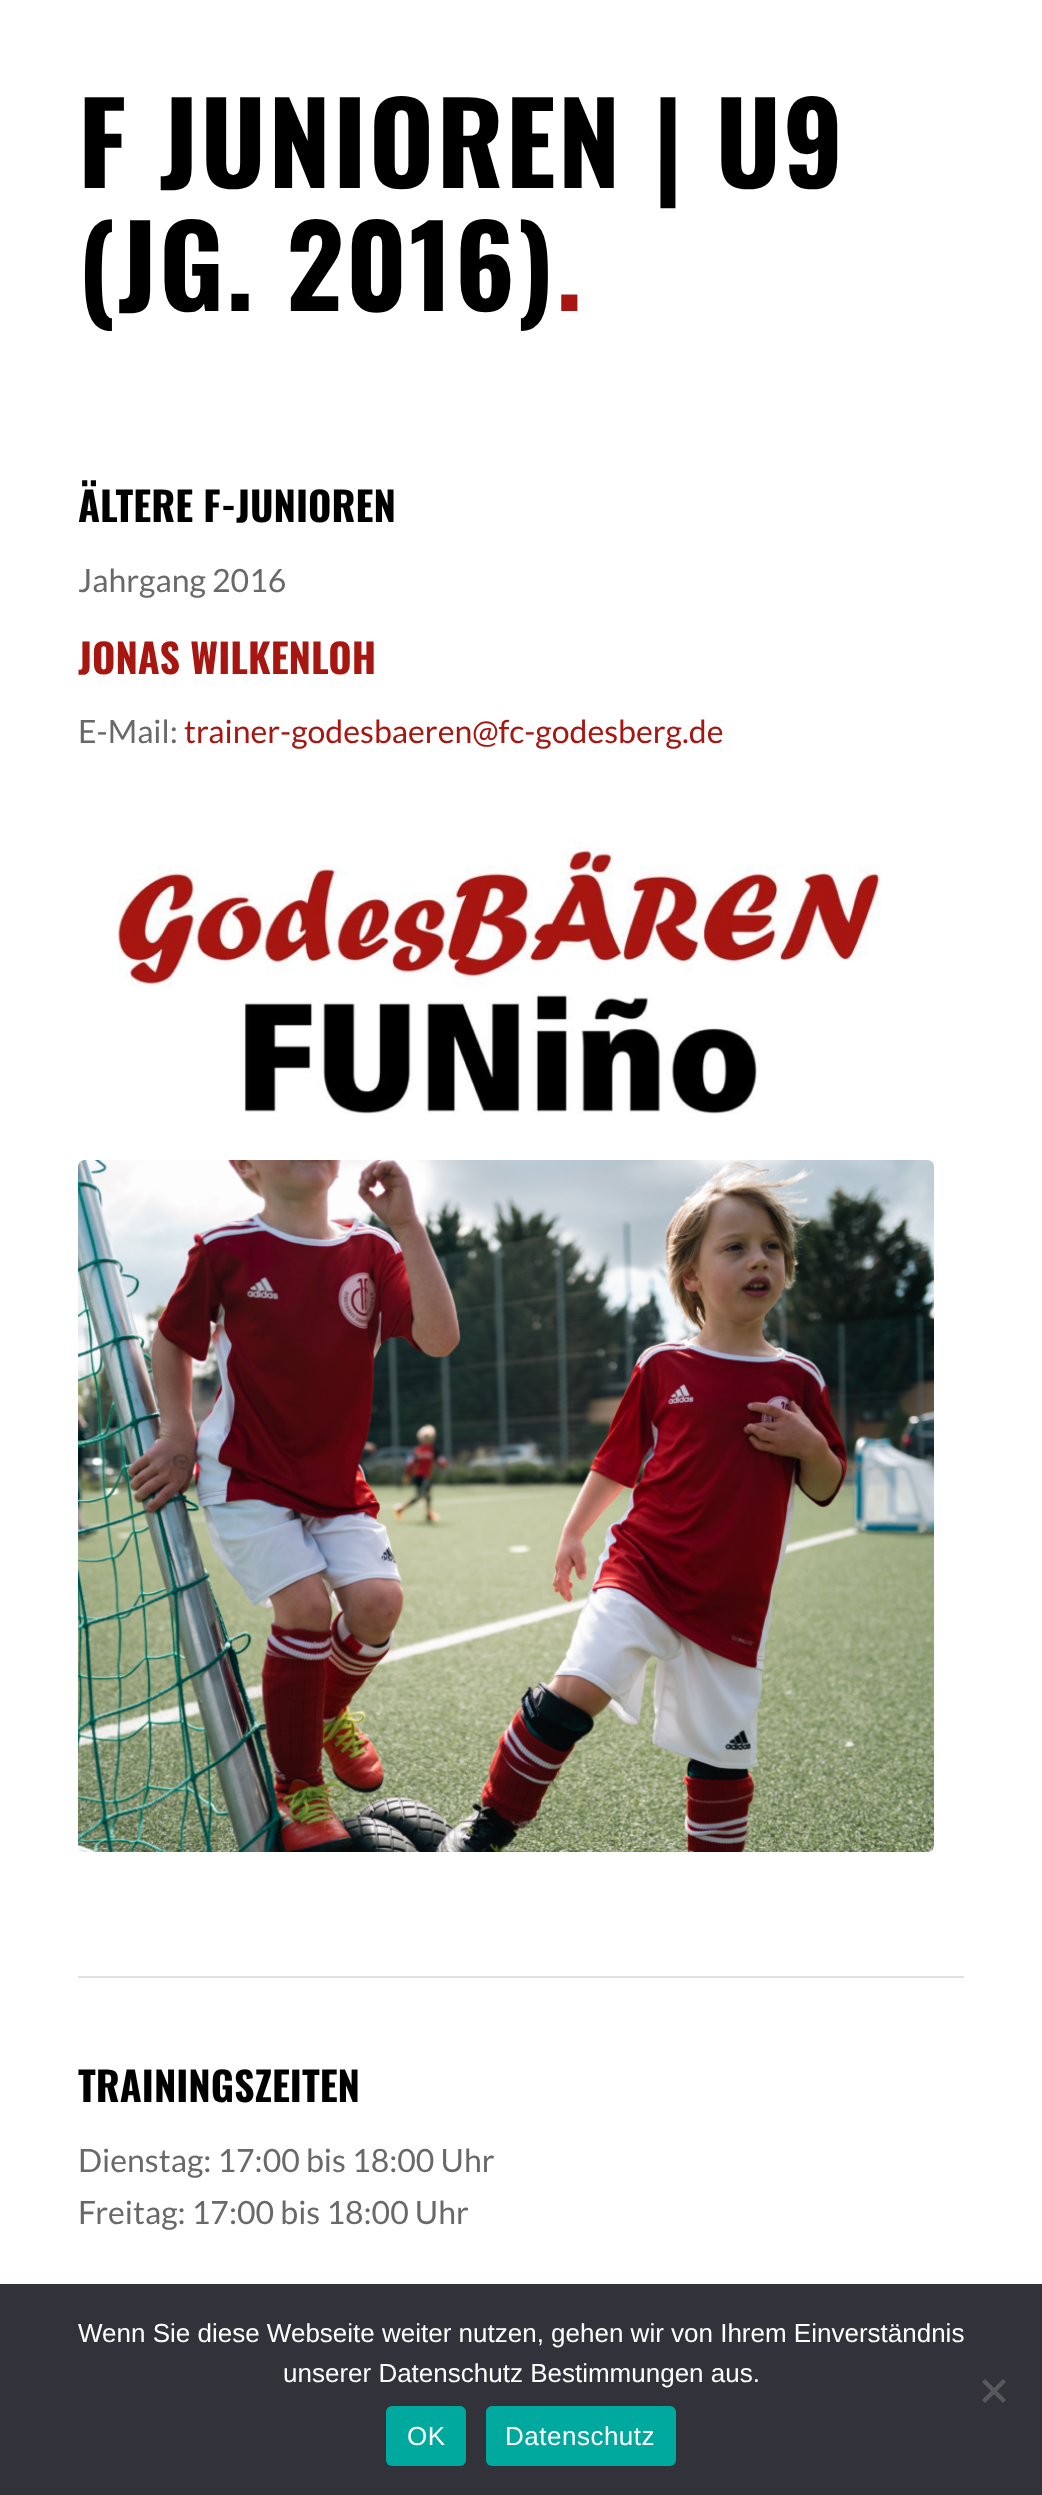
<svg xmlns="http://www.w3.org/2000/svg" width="1042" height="2495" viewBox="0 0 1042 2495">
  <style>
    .t1 { font: bold 112px Oswald; letter-spacing: 2px; fill: #000; }
    .t2 { font: 600 112px Oswald; letter-spacing: 2px; fill: #a71611; }
    .t3 { font: bold 40px Oswald; fill: #000; }
    .t4 { font: 32px Lato; fill: #696969; }
    .t5 { font: bold 40px Oswald; fill: #a71611; }
    .t6 { font: 32px Lato; fill: #a71611; }
    .t7 { font: 26px Liberation Sans; fill: #fff; }
    .t8 { font: 26px Liberation Sans; letter-spacing: 0.5px; fill: #fff; }
  </style>
  <rect width="100%" height="100%" fill="#fff"/>
  <text x="78" y="188" class="t1">F JUNIOREN | U9</text>
  <text x="78" y="311" class="t1">(JG. 2016)</text>
  <text x="556" y="311" class="t2">.</text>
  <text x="78" y="522" class="t3">ÄLTERE F-JUNIOREN</text>
  <text x="78" y="592" class="t4">Jahrgang 2016</text>
  <text x="78" y="674" class="t5">JONAS WILKENLOH</text>
  <text x="78" y="743" class="t4">E-Mail:</text>
  <text x="184" y="743" class="t6">trainer-godesbaeren@fc-godesberg.de</text>
  <image x="117" y="839" width="764" height="275" href="images/1.png"/>
  <image x="78" y="1160" width="856" height="692" href="images/2.png"/>
  <rect x="78" y="1976" width="886" height="2" fill="#e1e1e1"/>
  <text x="78" y="2102" class="t3">TRAININGSZEITEN</text>
  <text x="78" y="2172" class="t4">Dienstag: 17:00 bis 18:00 Uhr</text>
  <text x="78" y="2224" class="t4">Freitag: 17:00 bis 18:00 Uhr</text>
  <rect x="0" y="2284" width="1042" height="211" fill="#32323a"/>
  <text x="78" y="2342" class="t7">Wenn Sie diese Webseite weiter nutzen, gehen wir von Ihrem Einverständnis</text>
  <text x="283" y="2382" class="t7">unserer Datenschutz Bestimmungen aus.</text>
  <path d="M1003 2379L1006 2382L985 2403L982 2400Z" fill="#59595d"/>
  <path d="M982 2382L985 2379L1006 2400L1003 2403Z" fill="#59595d"/>
  <rect x="386" y="2406" width="80" height="60" rx="6" fill="#00a99d"/>
  <text x="407" y="2445" class="t8">OK</text>
  <rect x="486" y="2406" width="190" height="60" rx="6" fill="#00a99d"/>
  <text x="505" y="2445" class="t8">Datenschutz</text>
</svg>
